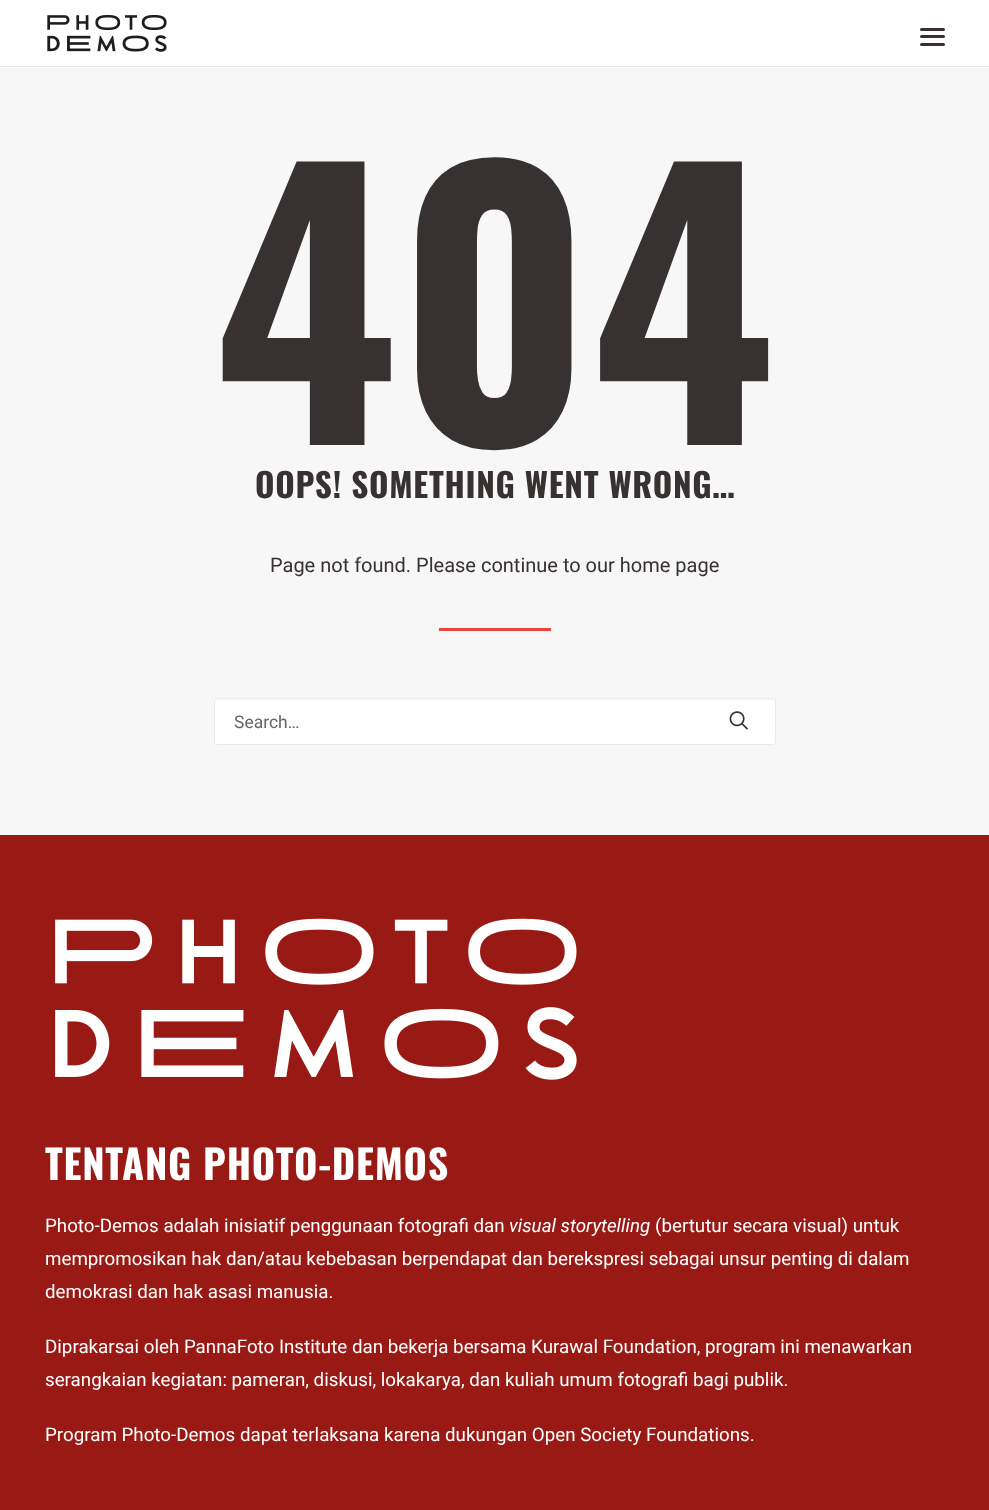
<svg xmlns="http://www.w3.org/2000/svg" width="989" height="1510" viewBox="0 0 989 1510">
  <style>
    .t1 { font: bold 350px Oswald; letter-spacing: 0.75px; fill: #383132; }
    .t2 { font: bold 33.3px Oswald; letter-spacing: 0.7px; fill: #383132; }
    .t3 { font: 20px Roboto; fill: #383132; }
    .t4 { font: 17.5px Roboto; fill: #6a6364; }
    .t5 { font: bold 40px Oswald; letter-spacing: 0.75px; fill: #fff; }
    .t6 { font: 18.75px Roboto; fill: #fff; }
    .t7 { font: italic 18.75px Roboto; fill: #fff; }
  </style>
  <rect width="100%" height="100%" fill="#f7f7f7"/>
  <rect x="0" y="0" width="989" height="68" fill="#fff"/>
  <rect x="0" y="66" width="989" height="1" fill="#eaeaea"/>
  <image x="47" y="15" width="120" height="37" href="images/1.png"/>
  <rect x="920" y="35" width="25" height="3" rx="1.5" fill="#383132"/>
  <rect x="920" y="28" width="25" height="3" rx="1.5" fill="#383132"/>
  <rect x="920" y="43" width="25" height="3" rx="1.5" fill="#383132"/>
  <text x="214" y="445" class="t1">404</text>
  <text x="255" y="498" class="t2">OOPS! SOMETHING WENT WRONG…</text>
  <text x="270" y="572" class="t3">Page not found. Please continue to our home page</text>
  <rect x="439" y="628" width="112" height="3" fill="#e8453c"/>
  <rect x="214" y="698" width="562" height="47" rx="2.5" fill="#fff"/>
  <path d="M216 701H774L775 702C775 701 775 699 774 699H216H215V702Z" fill="#f9f9f9"/>
  <rect x="214.5" y="698.5" width="561" height="46" rx="2" fill="none" stroke="#eaeaea"/>
  <text x="234" y="728" class="t4">Search…</text>
  <image x="729" y="711" width="19" height="19" href="images/2.png"/>
  <rect x="0" y="835" width="989" height="675" fill="#991a15"/>
  <image x="55" y="918" width="522" height="162" href="images/3.png"/>
  <text x="45" y="1180" class="t5">TENTANG PHOTO-DEMOS</text>
  <text x="45" y="1232" class="t6">Photo-Demos adalah inisiatif penggunaan fotografi dan</text>
  <text x="509" y="1232" class="t7">visual storytelling</text>
  <text x="655" y="1232" class="t6">(bertutur secara visual) untuk</text>
  <text x="45" y="1265" class="t6">mempromosikan hak dan/atau kebebasan berpendapat dan berekspresi sebagai unsur penting di dalam</text>
  <text x="45" y="1298" class="t6">demokrasi dan hak asasi manusia.</text>
  <text x="45" y="1353" class="t6">Diprakarsai oleh PannaFoto Institute dan bekerja bersama Kurawal Foundation, program ini menawarkan</text>
  <text x="45" y="1386" class="t6">serangkaian kegiatan: pameran, diskusi, lokakarya, dan kuliah umum fotografi bagi publik.</text>
  <text x="45" y="1441" class="t6">Program Photo-Demos dapat terlaksana karena dukungan Open Society Foundations.</text>
</svg>
